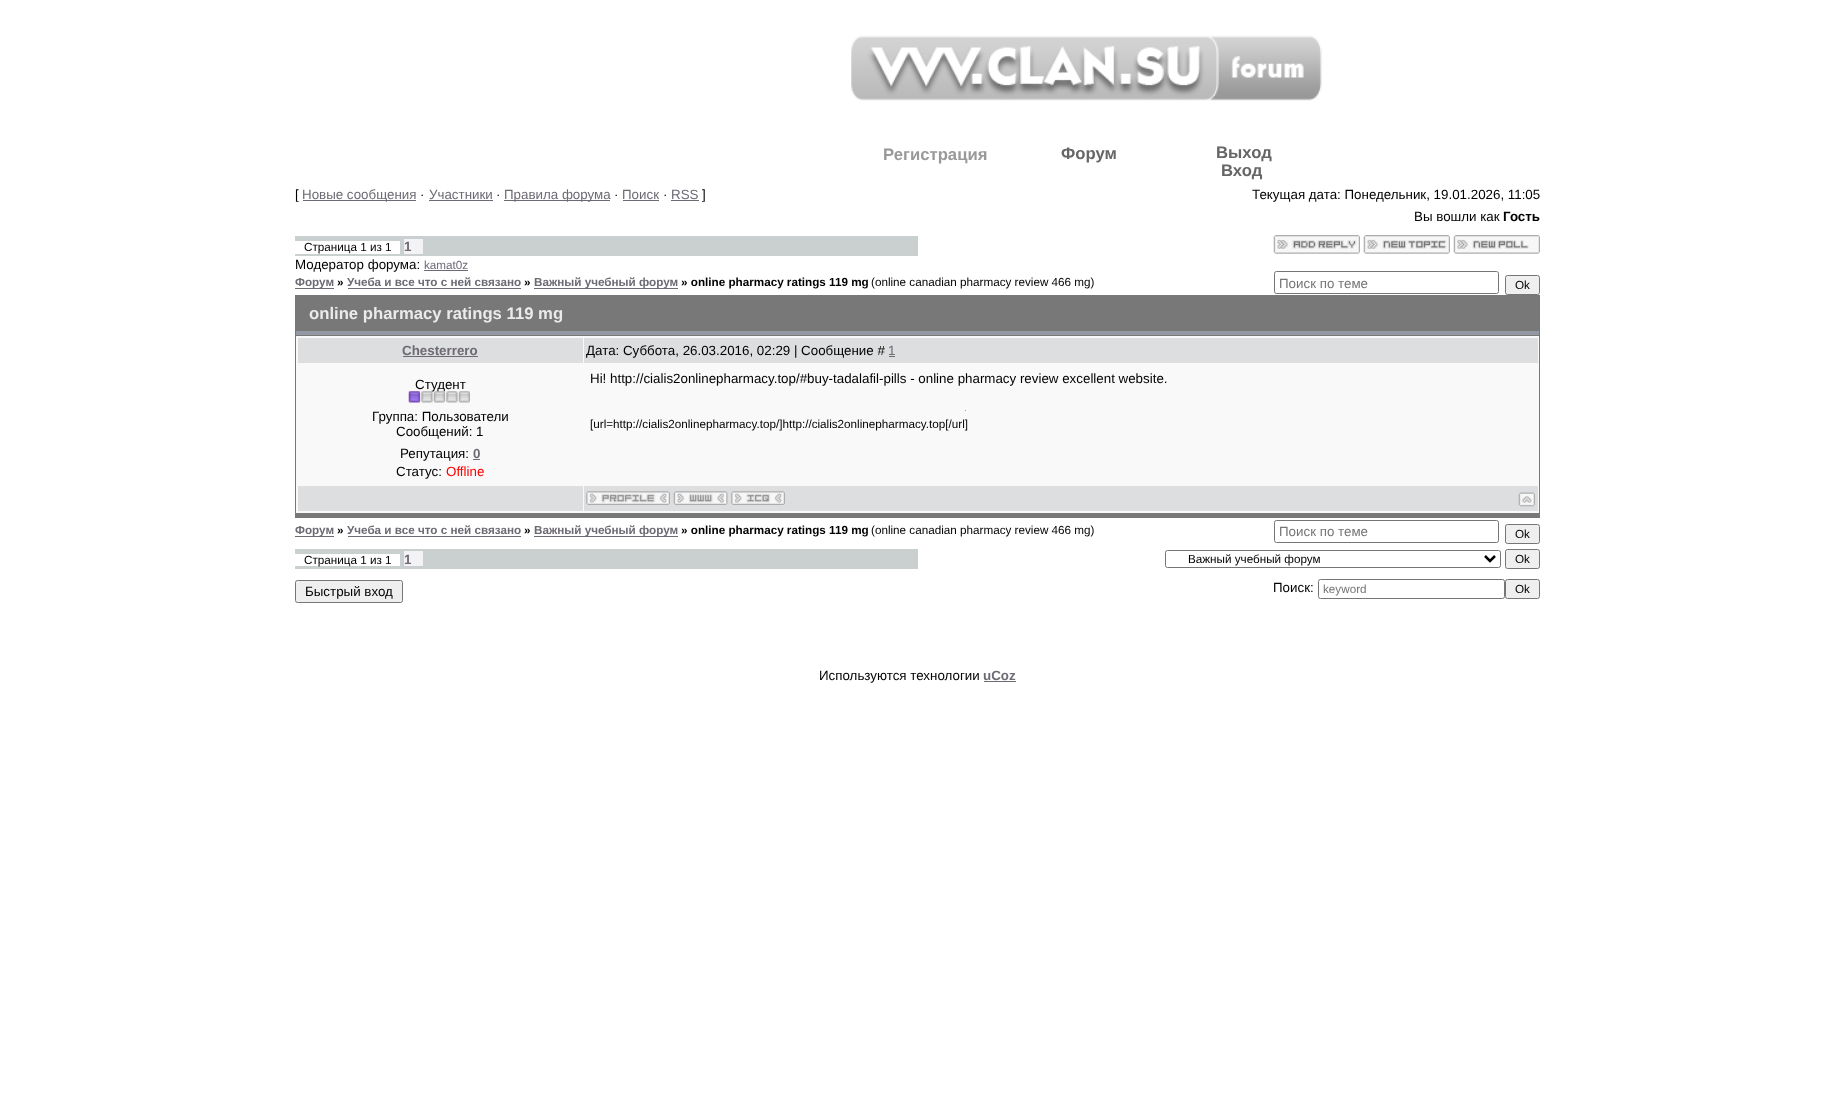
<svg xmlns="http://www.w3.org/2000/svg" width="1834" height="1120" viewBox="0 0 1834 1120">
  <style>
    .t1 { font: bold 16.7px Liberation Sans; fill: #999; }
    .t2 { font: bold 16.7px Liberation Sans; fill: #666; }
    .t3 { font: 13.35px Liberation Sans; fill: #000; }
    .t4 { font: 13.35px Liberation Sans; fill: #6d6a74; }
    .t5 { font: bold 13.35px Liberation Sans; fill: #000; }
    .t6 { font: 11.7px Liberation Sans; fill: #000; }
    .t7 { font: bold 13.35px Liberation Sans; fill: #6d6a74; }
    .t8 { font: 11.7px Liberation Sans; fill: #6d6a74; }
    .t9 { font: bold 11.7px Liberation Sans; fill: #6d6a74; }
    .t10 { font: bold 11.7px Liberation Sans; fill: #000; }
    .t11 { font: 13.35px Liberation Sans; fill: #757575; }
    .t12 { font: bold 16.7px Liberation Sans; fill: #ebebeb; }
    .t13 { font: 13.35px Liberation Sans; fill: #f00; }
    .t14 { font: 11.7px Liberation Sans; fill: #757575; }
  </style>
  <rect width="100%" height="100%" fill="#fff"/>
  <image x="850" y="35" width="473" height="66" href="images/1.png"/>
  <text x="883" y="160" class="t1">Регистрация</text>
  <text x="1061" y="159" class="t2">Форум</text>
  <text x="1216" y="158" class="t2">Выход</text>
  <text x="1221" y="176" class="t2">Вход</text>
  <text x="295" y="199" class="t3">[</text>
  <rect x="303" y="200" width="113" height="1" fill="#6d6a74"/>
  <text x="302" y="199" class="t4">Новые сообщения</text>
  <text x="420" y="199" class="t3">·</text>
  <text x="429" y="199" class="t4">Участники</text>
  <rect x="429" y="200" width="64" height="1" fill="#6d6a74"/>
  <text x="496" y="199" class="t3">·</text>
  <rect x="504" y="200" width="106" height="1" fill="#6d6a74"/>
  <text x="504" y="199" class="t4">Правила форума</text>
  <text x="614" y="199" class="t3">·</text>
  <text x="622" y="199" class="t4">Поиск</text>
  <rect x="623" y="200" width="36" height="1" fill="#6d6a74"/>
  <text x="663" y="199" class="t3">·</text>
  <text x="671" y="199" class="t4">RSS</text>
  <rect x="671" y="200" width="28" height="1" fill="#6d6a74"/>
  <text x="702" y="199" class="t3">]</text>
  <text x="1252" y="199" class="t3">Текущая дата: Понедельник, 19.01.2026, 11:05</text>
  <text x="1414" y="221" class="t3">Вы вошли как</text>
  <text x="1503" y="221" class="t5">Гость</text>
  <rect x="295" y="236" width="623" height="20" fill="#cad0d0"/>
  <rect x="295" y="241" width="105" height="13" fill="#fff"/>
  <text x="304" y="251" class="t6">Страница 1 из 1</text>
  <rect x="404" y="239" width="19" height="15" fill="#f3f2f4"/>
  <text x="404" y="251" class="t7">1</text>
  <image x="1273" y="235" width="87" height="19" href="images/2.png"/>
  <image x="1363" y="235" width="87" height="19" href="images/3.png"/>
  <image x="1453" y="235" width="87" height="19" href="images/4.png"/>
  <text x="295" y="269" class="t3">Модератор форума:</text>
  <text x="424" y="269" class="t8">kamat0z</text>
  <rect x="424" y="270" width="44" height="1" fill="#6d6a74"/>
  <rect x="295" y="288" width="39" height="1" fill="#6d6a74"/>
  <text x="295" y="286" class="t9">Форум</text>
  <text x="337" y="286" class="t10">»</text>
  <text x="347" y="286" class="t9">Учеба и все что с ней связано</text>
  <rect x="348" y="288" width="173" height="1" fill="#6d6a74"/>
  <text x="524" y="286" class="t10">»</text>
  <rect x="534" y="288" width="144" height="1" fill="#6d6a74"/>
  <text x="534" y="286" class="t9">Важный учебный форум</text>
  <text x="681" y="286" class="t10">» online pharmacy ratings 119 mg</text>
  <text x="871" y="286" class="t6">(online canadian pharmacy review 466 mg)</text>
  <rect x="1274.5" y="271.5" width="224" height="22" rx="2" fill="none" stroke="#767676"/>
  <text x="1279" y="288" class="t11">Поиск по теме</text>
  <rect x="1505.5" y="275.5" width="34" height="19" rx="2" fill="#efefef" stroke="#767676"/>
  <text x="1515" y="289" class="t6">Ok</text>
  <rect x="295" y="295" width="1245" height="223" fill="#787878"/>
  <text x="309" y="319" class="t12">online pharmacy ratings 119 mg</text>
  <rect x="296" y="331" width="1243" height="4" fill="#9399a2"/>
  <rect x="296" y="336" width="1243" height="177" fill="#f9f9f9"/>
  <rect x="298" y="338" width="285" height="25" fill="#dddedf"/>
  <text x="402" y="355" class="t7">Chesterrero</text>
  <rect x="403" y="356" width="75" height="1" fill="#6d6a74"/>
  <rect x="584" y="338" width="954" height="25" fill="#dddedf"/>
  <text x="586" y="355" class="t3">Дата: Суббота, 26.03.2016, 02:29 | Сообщение #</text>
  <text x="888" y="355" class="t4">1</text>
  <rect x="889" y="356" width="6" height="1" fill="#6d6a74"/>
  <text x="415" y="389" class="t3">Студент</text>
  <image x="408" y="391" width="62" height="12" href="images/5.png"/>
  <text x="372" y="421" class="t3">Группа: Пользователи</text>
  <text x="396" y="436" class="t3">Сообщений: 1</text>
  <text x="400" y="458" class="t3">Репутация:</text>
  <text x="473" y="458" class="t7">0</text>
  <rect x="473" y="459" width="7" height="1" fill="#6d6a74"/>
  <text x="396" y="476" class="t3">Статус:</text>
  <text x="446" y="476" class="t13">Offline</text>
  <text x="590" y="383" class="t3">Hi! http://cialis2onlinepharmacy.top/#buy-tadalafil-pills - online pharmacy review excellent website.</text>
  <rect x="1154" y="410" width="1" height="1" fill="#eee"/>
  <rect x="965" y="410" width="1" height="1" fill="#9f9f9f"/>
  <text x="590" y="428" class="t6">[url=http://cialis2onlinepharmacy.top/]http://cialis2onlinepharmacy.top[/url]</text>
  <rect x="298" y="486" width="285" height="25" fill="#dddedf"/>
  <rect x="584" y="486" width="954" height="25" fill="#dddedf"/>
  <image x="586" y="491" width="84" height="14" href="images/6.png"/>
  <image x="673" y="491" width="55" height="14" href="images/7.png"/>
  <image x="731" y="491" width="54" height="14" href="images/8.png"/>
  <image x="1518" y="492" width="17" height="15" href="images/9.png"/>
  <rect x="295" y="536" width="39" height="1" fill="#6d6a74"/>
  <text x="295" y="534" class="t9">Форум</text>
  <text x="337" y="534" class="t10">»</text>
  <text x="347" y="534" class="t9">Учеба и все что с ней связано</text>
  <rect x="348" y="536" width="173" height="1" fill="#6d6a74"/>
  <text x="524" y="534" class="t10">»</text>
  <rect x="534" y="536" width="144" height="1" fill="#6d6a74"/>
  <text x="534" y="534" class="t9">Важный учебный форум</text>
  <text x="681" y="534" class="t10">» online pharmacy ratings 119 mg</text>
  <text x="871" y="534" class="t6">(online canadian pharmacy review 466 mg)</text>
  <rect x="1274.5" y="520.5" width="224" height="22" rx="2" fill="none" stroke="#767676"/>
  <text x="1279" y="536" class="t11">Поиск по теме</text>
  <rect x="1505.5" y="524.5" width="34" height="19" rx="2" fill="#efefef" stroke="#767676"/>
  <text x="1515" y="538" class="t6">Ok</text>
  <rect x="295" y="549" width="623" height="20" fill="#cad0d0"/>
  <rect x="295" y="554" width="105" height="12" fill="#fff"/>
  <text x="304" y="564" class="t6">Страница 1 из 1</text>
  <rect x="404" y="551" width="19" height="15" fill="#f3f2f4"/>
  <text x="404" y="564" class="t7">1</text>
  <rect x="1165.5" y="550.5" width="335" height="17" rx="2" fill="none" stroke="#767676"/>
  <path d="M1485 556L1490 561L1495 556" fill="none" stroke="#000" stroke-width="2.5"/>
  <text x="1188" y="563" class="t6">Важный учебный форум</text>
  <rect x="1505.5" y="549.5" width="34" height="19" rx="2" fill="#efefef" stroke="#767676"/>
  <text x="1515" y="563" class="t6">Ok</text>
  <rect x="295.5" y="580.5" width="107" height="22" rx="2" fill="#efefef" stroke="#767676"/>
  <text x="305" y="596" class="t3">Быстрый вход</text>
  <text x="1273" y="592" class="t3">Поиск:</text>
  <rect x="1318.5" y="579.5" width="186" height="19" rx="2" fill="none" stroke="#767676"/>
  <text x="1323" y="593" class="t14">keyword</text>
  <rect x="1505.5" y="579.5" width="34" height="19" rx="2" fill="#efefef" stroke="#767676"/>
  <text x="1515" y="593" class="t6">Ok</text>
  <text x="819" y="680" class="t3">Используются технологии</text>
  <text x="983" y="680" class="t7">uCoz</text>
  <rect x="984" y="681" width="32" height="1" fill="#6d6a74"/>
</svg>
